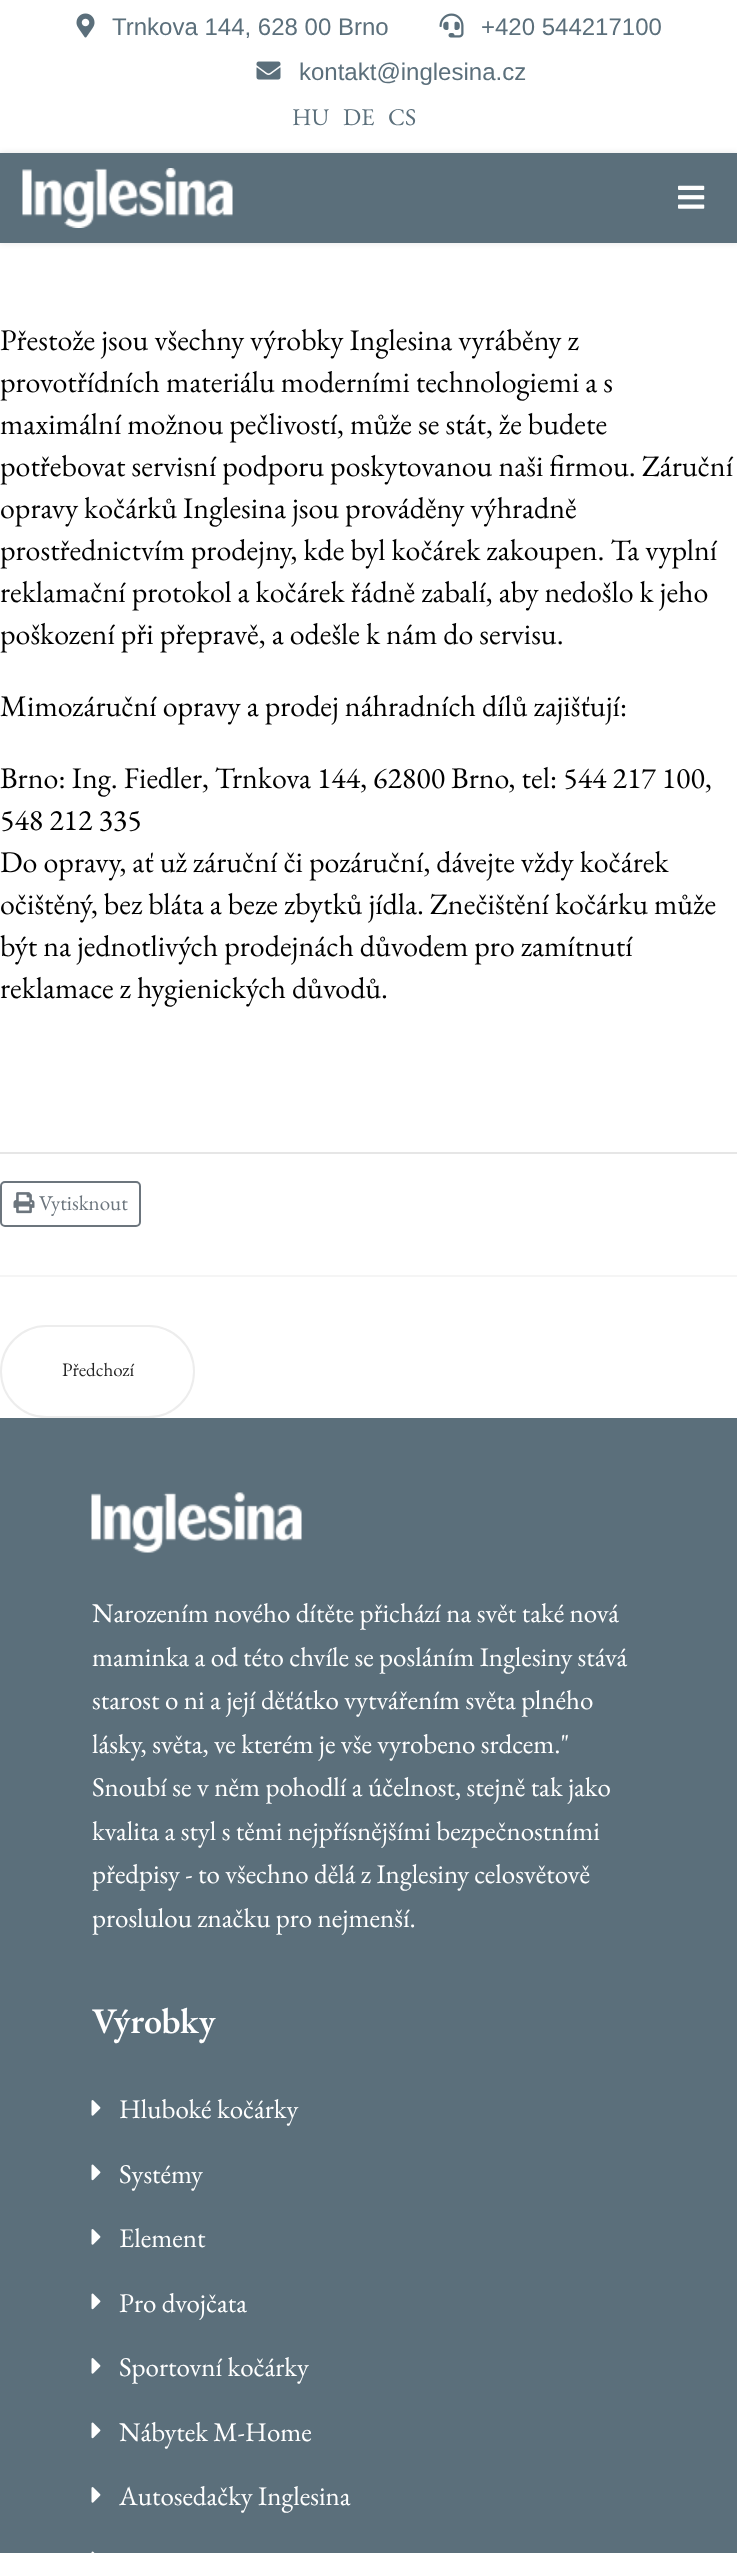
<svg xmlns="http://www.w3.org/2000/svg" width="737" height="2553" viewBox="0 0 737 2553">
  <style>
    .t1 { font: 24px Liberation Sans; fill: #5b6f7b; }
    .t2 { font: 24px EB Garamond; fill: #5b6f7b; }
    .t3 { font: 30px EB Garamond; fill: #000; }
    .t4 { font: 21px EB Garamond; fill: #6c757d; }
    .t5 { font: 19px EB Garamond; fill: #252525; }
    .t6 { font: 27px EB Garamond; fill: #fff; }
    .t7 { font: 600 36px EB Garamond; fill: #fff; }
  </style>
  <rect width="100%" height="100%" fill="#fff"/>
  <image x="76" y="13" width="19" height="25" href="images/1.png"/>
  <text x="112" y="35" class="t1">Trnkova 144, 628 00 Brno</text>
  <image x="439" y="13" width="25" height="25" href="images/2.png"/>
  <text x="481" y="35" class="t1">+420 544217100</text>
  <image x="256" y="61" width="25" height="19" href="images/3.png"/>
  <text x="299" y="80" class="t1">kontakt@inglesina.cz</text>
  <text x="292" y="125" class="t2">HU</text>
  <text x="343" y="125" class="t2">DE</text>
  <text x="388" y="125" class="t2">CS</text>
  <rect x="0" y="153" width="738" height="90" fill="#0000001a" filter="blur(3px)"/>
  <rect x="0" y="153" width="737" height="90" fill="#5b6f7b"/>
  <image x="22" y="168" width="211" height="60" href="images/4.png"/>
  <image x="678" y="185" width="27" height="24" href="images/5.png"/>
  <text x="0" y="350" class="t3">Přestože jsou všechny výrobky Inglesina vyráběny z</text>
  <text x="0" y="392" class="t3">provotřídních materiálu moderními technologiemi a s</text>
  <text x="0" y="434" class="t3">maximální možnou pečlivostí, může se stát, že budete</text>
  <text x="0" y="476" class="t3">potřebovat servisní podporu poskytovanou naši firmou. Záruční</text>
  <text x="0" y="518" class="t3">opravy kočárků Inglesina jsou prováděny výhradně</text>
  <text x="0" y="560" class="t3">prostřednictvím prodejny, kde byl kočárek zakoupen. Ta vyplní</text>
  <text x="0" y="602" class="t3">reklamační protokol a kočárek řádně zabalí, aby nedošlo k jeho</text>
  <text x="0" y="644" class="t3">poškození při přepravě, a odešle k nám do servisu.</text>
  <text x="0" y="716" class="t3">Mimozáruční opravy a prodej náhradních dílů zajišťují:</text>
  <text x="0" y="788" class="t3">Brno: Ing. Fiedler, Trnkova 144, 62800 Brno, tel: 544 217 100,</text>
  <text x="0" y="830" class="t3">548 212 335</text>
  <text x="0" y="872" class="t3">Do opravy, ať už záruční či pozáruční, dávejte vždy kočárek</text>
  <text x="0" y="914" class="t3">očištěný, bez bláta a beze zbytků jídla. Znečištění kočárku může</text>
  <text x="0" y="956" class="t3">být na jednotlivých prodejnách důvodem pro zamítnutí</text>
  <text x="0" y="998" class="t3">reklamace z hygienických důvodů.</text>
  <rect x="0" y="1152" width="737" height="2" fill="#e6e6e6"/>
  <rect x="1" y="1182" width="139" height="44" rx="4" fill="none" stroke="#6c757d" stroke-width="2"/>
  <image x="13" y="1192" width="22" height="22" href="images/6.png"/>
  <text x="39" y="1210" class="t4">Vytisknout</text>
  <rect x="0" y="1275" width="737" height="2" fill="#f5f5f5"/>
  <rect x="1" y="1326" width="193" height="91" rx="45.5" fill="none" stroke="#ededed" stroke-width="2"/>
  <text x="62" y="1376" class="t5">Předchozí</text>
  <rect x="0" y="1418" width="737" height="1135" fill="#5b6f7b"/>
  <image x="91" y="1492" width="211" height="61" href="images/7.png"/>
  <text x="92" y="1622" class="t6">Narozením nového dítěte přichází na svět také nová</text>
  <text x="92" y="1666" class="t6">maminka a od této chvíle se posláním Inglesiny stává</text>
  <text x="92" y="1709" class="t6">starost o ni a její děťátko vytvářením světa plného</text>
  <text x="92" y="1753" class="t6">lásky, světa, ve kterém je vše vyrobeno srdcem."</text>
  <text x="92" y="1796" class="t6">Snoubí se v něm pohodlí a účelnost, stejně tak jako</text>
  <text x="92" y="1840" class="t6">kvalita a styl s těmi nejpřísnějšími bezpečnostními</text>
  <text x="92" y="1883" class="t6">předpisy - to všechno dělá z Inglesiny celosvětově</text>
  <text x="92" y="1927" class="t6">proslulou značku pro nejmenší.</text>
  <text x="92" y="2033" class="t7">Výrobky</text>
  <image x="91" y="2100" width="10" height="16" href="images/8.png"/>
  <text x="119" y="2118" class="t6">Hluboké kočárky</text>
  <image x="91" y="2164" width="10" height="17" href="images/9.png"/>
  <text x="119" y="2183" class="t6">Systémy</text>
  <image x="91" y="2229" width="10" height="16" href="images/8.png"/>
  <text x="119" y="2247" class="t6">Element</text>
  <image x="91" y="2293" width="10" height="17" href="images/9.png"/>
  <text x="119" y="2312" class="t6">Pro dvojčata</text>
  <image x="91" y="2358" width="10" height="16" href="images/8.png"/>
  <text x="119" y="2376" class="t6">Sportovní kočárky</text>
  <image x="91" y="2422" width="10" height="17" href="images/9.png"/>
  <text x="119" y="2441" class="t6">Nábytek M-Home</text>
  <image x="91" y="2487" width="10" height="16" href="images/8.png"/>
  <text x="119" y="2505" class="t6">Autosedačky Inglesina</text>
  <image x="91" y="2551" width="4" height="2" href="images/10.png"/>
</svg>
